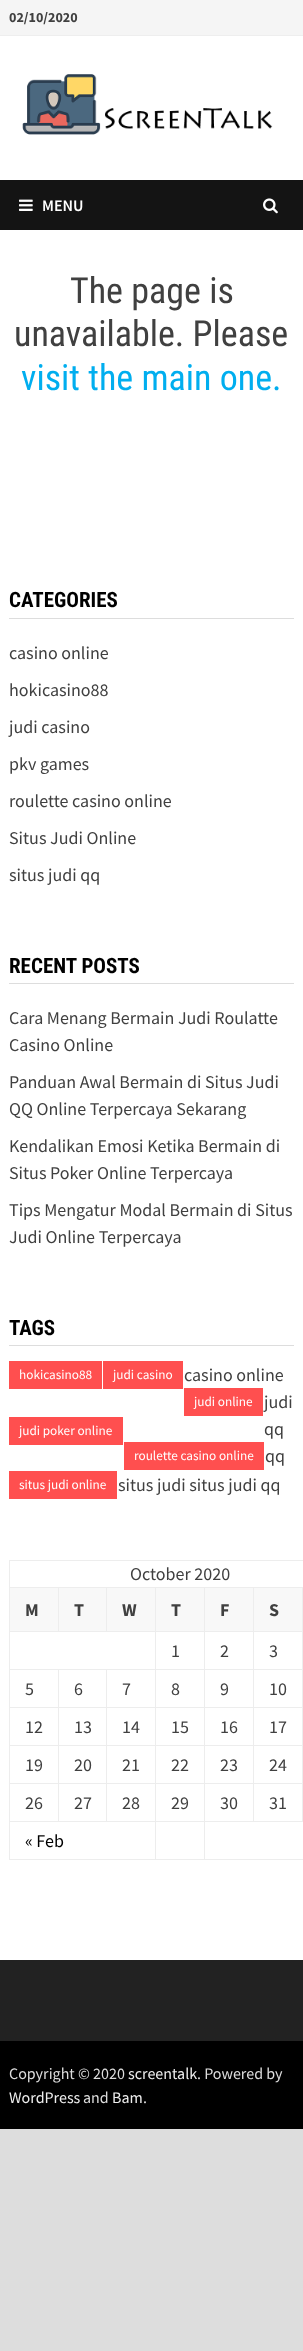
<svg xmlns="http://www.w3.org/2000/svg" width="303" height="2351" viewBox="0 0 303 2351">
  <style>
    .t1 { font: bold 14px Source Sans Pro; fill: #404040; }
    .t2 { font: 600 16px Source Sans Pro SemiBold; fill: #fff; }
    .t3 { font: 36px Roboto Condensed; fill: #404040; }
    .t4 { font: 36px Roboto Condensed; fill: #00aeef; }
    .t5 { font: bold 21px Roboto Condensed; fill: #000; }
    .t6 { font: 18px Source Sans Pro; fill: #404040; }
    .t7 { font: 13.25px Source Sans Pro; fill: #fff; }
    .t8 { font: bold 18px Source Sans Pro; fill: #404040; }
    .t9 { font: 18px Source Sans Pro; fill: #000; }
    .t10 { font: 16px Source Sans Pro; fill: #ddd; }
    .t11 { font: 16px Source Sans Pro; fill: #eee; }
  </style>
  <rect width="100%" height="100%" fill="#ddd"/>
  <rect x="0" y="36" width="303" height="1924" fill="#fff"/>
  <rect x="0" y="0" width="303" height="35" fill="#f5f5f5"/>
  <rect x="0" y="35" width="303" height="1" fill="#eee"/>
  <text x="9" y="22" class="t1">02/10/2020</text>
  <image x="22" y="74" width="251" height="61" href="images/1.png"/>
  <rect x="0" y="180" width="303" height="50" fill="#141414"/>
  <image x="19" y="199" width="14" height="12" href="images/2.png"/>
  <text x="42" y="211" class="t2">MENU</text>
  <image x="263" y="198" width="15" height="16" href="images/3.png"/>
  <text x="70" y="303" class="t3">The page is</text>
  <text x="14" y="346" class="t3">unavailable. Please</text>
  <text x="21" y="390" class="t4">visit the main one.</text>
  <rect x="9" y="618" width="285" height="1" fill="#ddd"/>
  <text x="9" y="607" class="t5">CATEGORIES</text>
  <text x="9" y="659" class="t6">casino online</text>
  <text x="9" y="696" class="t6">hokicasino88</text>
  <text x="9" y="733" class="t6">judi casino</text>
  <text x="9" y="770" class="t6">pkv games</text>
  <text x="9" y="807" class="t6">roulette casino online</text>
  <text x="9" y="844" class="t6">Situs Judi Online</text>
  <text x="9" y="881" class="t6">situs judi qq</text>
  <rect x="9" y="983" width="285" height="1" fill="#ddd"/>
  <text x="9" y="973" class="t5">RECENT POSTS</text>
  <text x="9" y="1024" class="t6">Cara Menang Bermain Judi Roulatte</text>
  <text x="9" y="1051" class="t6">Casino Online</text>
  <text x="9" y="1088" class="t6">Panduan Awal Bermain di Situs Judi</text>
  <text x="9" y="1115" class="t6">QQ Online Terpercaya Sekarang</text>
  <text x="9" y="1152" class="t6">Kendalikan Emosi Ketika Bermain di</text>
  <text x="9" y="1179" class="t6">Situs Poker Online Terpercaya</text>
  <text x="9" y="1216" class="t6">Tips Mengatur Modal Bermain di Situs</text>
  <text x="9" y="1243" class="t6">Judi Online Terpercaya</text>
  <rect x="9" y="1345" width="285" height="1" fill="#ddd"/>
  <text x="9" y="1335" class="t5">TAGS</text>
  <rect x="9" y="1361" width="93" height="28" fill="#ff4f4f"/>
  <text x="19" y="1379" class="t7">hokicasino88</text>
  <rect x="103" y="1361" width="80" height="28" fill="#ff4f4f"/>
  <text x="113" y="1379" class="t7">judi casino</text>
  <text x="184" y="1381" class="t6">casino online</text>
  <rect x="184" y="1388" width="79" height="28" fill="#ff4f4f"/>
  <text x="194" y="1406" class="t7">judi online</text>
  <text x="264" y="1408" class="t6">judi</text>
  <rect x="9" y="1417" width="114" height="28" fill="#ff4f4f"/>
  <text x="19" y="1435" class="t7">judi poker online</text>
  <text x="264" y="1435" class="t6">qq</text>
  <rect x="124" y="1442" width="140" height="28" fill="#ff4f4f"/>
  <text x="134" y="1460" class="t7">roulette casino online</text>
  <text x="265" y="1462" class="t6">qq</text>
  <rect x="9" y="1471" width="108" height="28" fill="#ff4f4f"/>
  <text x="19" y="1489" class="t7">situs judi online</text>
  <text x="118" y="1491" class="t6">situs judi situs judi qq</text>
  <rect x="9" y="1560" width="294" height="1" fill="#ededed"/>
  <rect x="9" y="1859" width="294" height="1" fill="#ededed"/>
  <rect x="9" y="1560" width="1" height="300" fill="#ededed"/>
  <text x="130" y="1580" class="t6">October 2020</text>
  <rect x="10" y="1588" width="48" height="43" fill="#f8f8f8"/>
  <rect x="302" y="1783" width="1" height="39" fill="#ededed"/>
  <rect x="253" y="1783" width="50" height="1" fill="#ededed"/>
  <rect x="302" y="1745" width="1" height="39" fill="#ededed"/>
  <rect x="253" y="1745" width="50" height="1" fill="#ededed"/>
  <rect x="302" y="1707" width="1" height="39" fill="#ededed"/>
  <rect x="253" y="1707" width="50" height="1" fill="#ededed"/>
  <rect x="302" y="1669" width="1" height="39" fill="#ededed"/>
  <rect x="253" y="1669" width="50" height="1" fill="#ededed"/>
  <rect x="302" y="1631" width="1" height="39" fill="#ededed"/>
  <rect x="253" y="1631" width="50" height="1" fill="#ededed"/>
  <rect x="302" y="1587" width="1" height="45" fill="#ededed"/>
  <rect x="253" y="1587" width="50" height="1" fill="#ededed"/>
  <rect x="253" y="1821" width="50" height="1" fill="#ededed"/>
  <rect x="253" y="1783" width="1" height="39" fill="#ededed"/>
  <rect x="204" y="1783" width="50" height="1" fill="#ededed"/>
  <rect x="253" y="1745" width="1" height="39" fill="#ededed"/>
  <rect x="204" y="1745" width="50" height="1" fill="#ededed"/>
  <rect x="253" y="1707" width="1" height="39" fill="#ededed"/>
  <rect x="204" y="1707" width="50" height="1" fill="#ededed"/>
  <rect x="253" y="1669" width="1" height="39" fill="#ededed"/>
  <rect x="204" y="1669" width="50" height="1" fill="#ededed"/>
  <rect x="253" y="1631" width="1" height="39" fill="#ededed"/>
  <rect x="204" y="1631" width="50" height="1" fill="#ededed"/>
  <rect x="253" y="1587" width="1" height="45" fill="#ededed"/>
  <rect x="204" y="1587" width="50" height="1" fill="#ededed"/>
  <rect x="204" y="1821" width="50" height="1" fill="#ededed"/>
  <rect x="204" y="1783" width="1" height="39" fill="#ededed"/>
  <rect x="155" y="1783" width="50" height="1" fill="#ededed"/>
  <rect x="204" y="1745" width="1" height="39" fill="#ededed"/>
  <rect x="155" y="1745" width="50" height="1" fill="#ededed"/>
  <rect x="204" y="1707" width="1" height="39" fill="#ededed"/>
  <rect x="155" y="1707" width="50" height="1" fill="#ededed"/>
  <rect x="204" y="1669" width="1" height="39" fill="#ededed"/>
  <rect x="155" y="1669" width="50" height="1" fill="#ededed"/>
  <rect x="204" y="1631" width="1" height="39" fill="#ededed"/>
  <rect x="155" y="1631" width="50" height="1" fill="#ededed"/>
  <rect x="204" y="1587" width="1" height="45" fill="#ededed"/>
  <rect x="155" y="1587" width="50" height="1" fill="#ededed"/>
  <rect x="155" y="1821" width="50" height="1" fill="#ededed"/>
  <rect x="155" y="1783" width="1" height="39" fill="#ededed"/>
  <rect x="106" y="1783" width="50" height="1" fill="#ededed"/>
  <rect x="155" y="1745" width="1" height="39" fill="#ededed"/>
  <rect x="106" y="1745" width="50" height="1" fill="#ededed"/>
  <rect x="155" y="1707" width="1" height="39" fill="#ededed"/>
  <rect x="106" y="1707" width="50" height="1" fill="#ededed"/>
  <rect x="155" y="1669" width="1" height="39" fill="#ededed"/>
  <rect x="106" y="1669" width="50" height="1" fill="#ededed"/>
  <rect x="155" y="1631" width="1" height="39" fill="#ededed"/>
  <rect x="9" y="1631" width="147" height="1" fill="#ededed"/>
  <rect x="155" y="1587" width="1" height="45" fill="#ededed"/>
  <rect x="106" y="1587" width="50" height="1" fill="#ededed"/>
  <rect x="106" y="1587" width="1" height="45" fill="#ededed"/>
  <rect x="58" y="1587" width="49" height="1" fill="#ededed"/>
  <rect x="58" y="1587" width="1" height="45" fill="#ededed"/>
  <rect x="9" y="1587" width="50" height="1" fill="#ededed"/>
  <text x="25" y="1616" class="t8">M</text>
  <rect x="59" y="1588" width="47" height="43" fill="#f8f8f8"/>
  <text x="74" y="1616" class="t8">T</text>
  <rect x="107" y="1588" width="48" height="43" fill="#f8f8f8"/>
  <text x="122" y="1616" class="t8">W</text>
  <rect x="156" y="1588" width="48" height="43" fill="#f8f8f8"/>
  <text x="171" y="1616" class="t8">T</text>
  <rect x="205" y="1588" width="48" height="43" fill="#f8f8f8"/>
  <text x="220" y="1616" class="t8">F</text>
  <rect x="254" y="1588" width="48" height="43" fill="#f8f8f8"/>
  <text x="269" y="1616" class="t8">S</text>
  <text x="171" y="1657" class="t6">1</text>
  <text x="220" y="1657" class="t6">2</text>
  <text x="269" y="1657" class="t6">3</text>
  <rect x="106" y="1821" width="50" height="1" fill="#ededed"/>
  <rect x="106" y="1783" width="1" height="39" fill="#ededed"/>
  <rect x="58" y="1783" width="49" height="1" fill="#ededed"/>
  <rect x="106" y="1745" width="1" height="39" fill="#ededed"/>
  <rect x="58" y="1745" width="49" height="1" fill="#ededed"/>
  <rect x="106" y="1707" width="1" height="39" fill="#ededed"/>
  <rect x="58" y="1707" width="49" height="1" fill="#ededed"/>
  <rect x="106" y="1669" width="1" height="39" fill="#ededed"/>
  <rect x="58" y="1669" width="49" height="1" fill="#ededed"/>
  <rect x="58" y="1821" width="49" height="1" fill="#ededed"/>
  <rect x="58" y="1783" width="1" height="39" fill="#ededed"/>
  <rect x="9" y="1783" width="50" height="1" fill="#ededed"/>
  <rect x="58" y="1745" width="1" height="39" fill="#ededed"/>
  <rect x="9" y="1745" width="50" height="1" fill="#ededed"/>
  <rect x="58" y="1707" width="1" height="39" fill="#ededed"/>
  <rect x="9" y="1707" width="50" height="1" fill="#ededed"/>
  <rect x="58" y="1669" width="1" height="39" fill="#ededed"/>
  <rect x="9" y="1669" width="50" height="1" fill="#ededed"/>
  <text x="25" y="1695" class="t6">5</text>
  <text x="74" y="1695" class="t6">6</text>
  <text x="122" y="1695" class="t6">7</text>
  <text x="171" y="1695" class="t6">8</text>
  <text x="220" y="1695" class="t6">9</text>
  <text x="269" y="1695" class="t6">10</text>
  <text x="25" y="1733" class="t6">12</text>
  <text x="74" y="1733" class="t6">13</text>
  <text x="122" y="1733" class="t6">14</text>
  <text x="171" y="1733" class="t6">15</text>
  <text x="220" y="1733" class="t6">16</text>
  <text x="269" y="1733" class="t6">17</text>
  <text x="25" y="1771" class="t6">19</text>
  <text x="74" y="1771" class="t6">20</text>
  <text x="122" y="1771" class="t6">21</text>
  <text x="171" y="1771" class="t6">22</text>
  <text x="220" y="1771" class="t6">23</text>
  <text x="269" y="1771" class="t6">24</text>
  <rect x="9" y="1821" width="50" height="1" fill="#ededed"/>
  <text x="25" y="1809" class="t6">26</text>
  <text x="74" y="1809" class="t6">27</text>
  <text x="122" y="1809" class="t6">28</text>
  <text x="171" y="1809" class="t6">29</text>
  <text x="220" y="1809" class="t6">30</text>
  <text x="269" y="1809" class="t6">31</text>
  <text x="25" y="1847" class="t9">« Feb</text>
  <rect x="155" y="1821" width="1" height="39" fill="#ededed"/>
  <rect x="204" y="1821" width="1" height="39" fill="#ededed"/>
  <rect x="0" y="1960" width="303" height="81" fill="#222"/>
  <rect x="0" y="2041" width="303" height="88" fill="#000"/>
  <text x="9" y="2079" class="t10">Copyright © 2020</text>
  <text x="128" y="2079" class="t11">screentalk</text>
  <text x="197" y="2079" class="t10">. Powered by</text>
  <text x="9" y="2103" class="t11">WordPress</text>
  <text x="83" y="2103" class="t10">and</text>
  <text x="112" y="2103" class="t11">Bam</text>
  <text x="143" y="2103" class="t10">.</text>
</svg>
